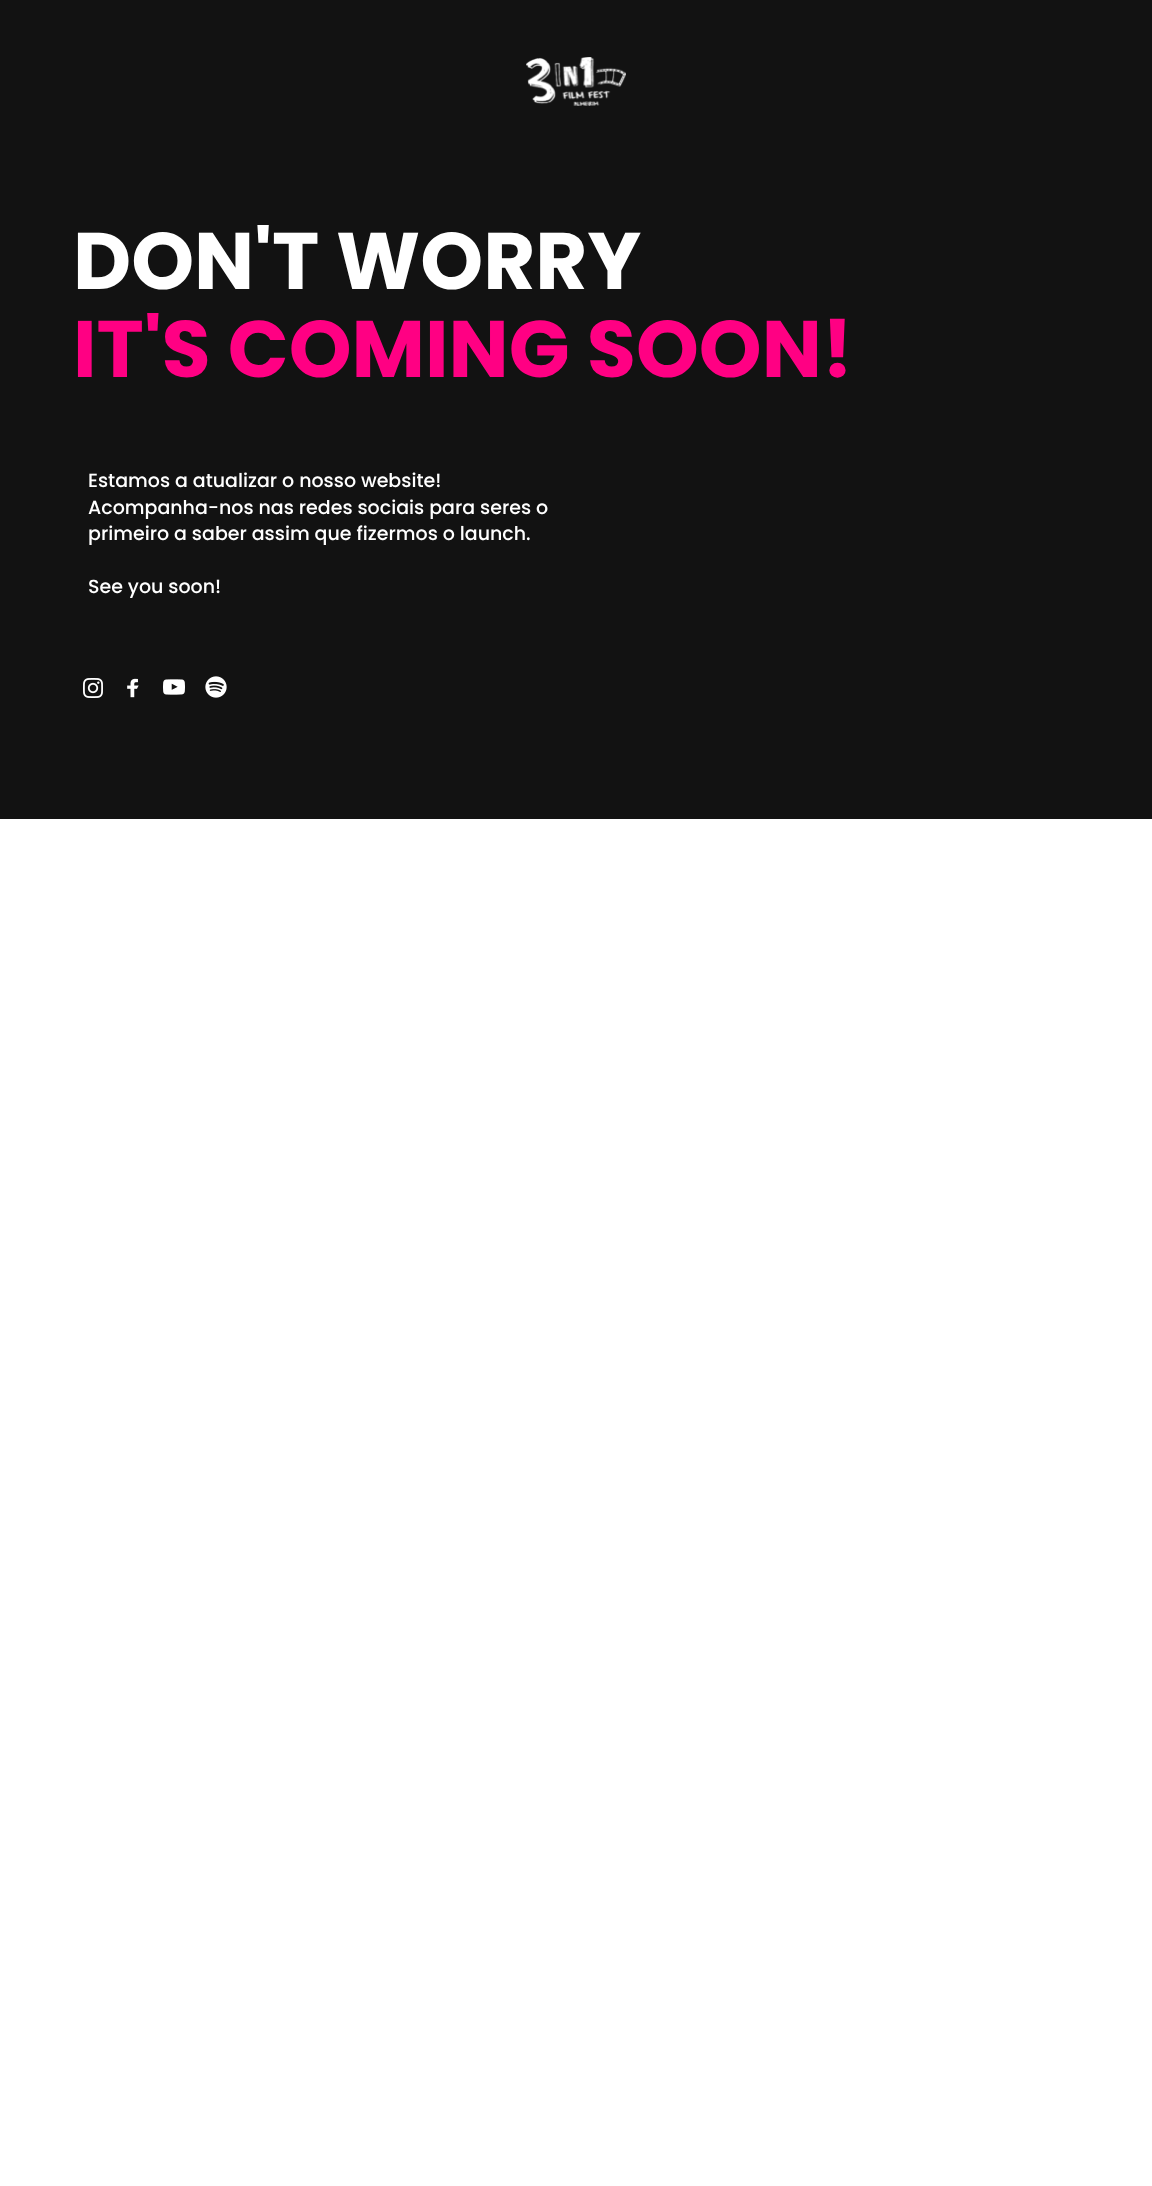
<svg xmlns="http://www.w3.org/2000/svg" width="1152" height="2186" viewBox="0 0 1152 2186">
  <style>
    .t1 { font: bold 80px Poppins; fill: #fff; }
    .t2 { font: bold 80px Poppins; fill: #ff0083; }
    .t3 { font: 500 19px Poppins; fill: #fff; }
  </style>
  <rect width="100%" height="100%" fill="#fff"/>
  <rect x="0" y="0" width="1152" height="819" fill="#121212"/>
  <image x="526" y="57" width="100" height="49" href="images/1.png"/>
  <text x="73" y="289" class="t1">DON'T WORRY</text>
  <text x="73" y="377" class="t2">IT'S COMING SOON!</text>
  <text x="88" y="487" class="t3">Estamos a atualizar o nosso website!</text>
  <text x="88" y="514" class="t3">Acompanha-nos nas redes sociais para seres o</text>
  <text x="88" y="540" class="t3">primeiro a saber assim que fizermos o launch.</text>
  <text x="88" y="593" class="t3">See you soon!</text>
  <image x="83" y="678" width="20" height="20" href="images/2.png"/>
  <image x="127" y="678" width="12" height="20" href="images/3.png"/>
  <image x="163" y="679" width="22" height="16" href="images/4.png"/>
  <image x="205" y="676" width="22" height="22" href="images/5.png"/>
</svg>
